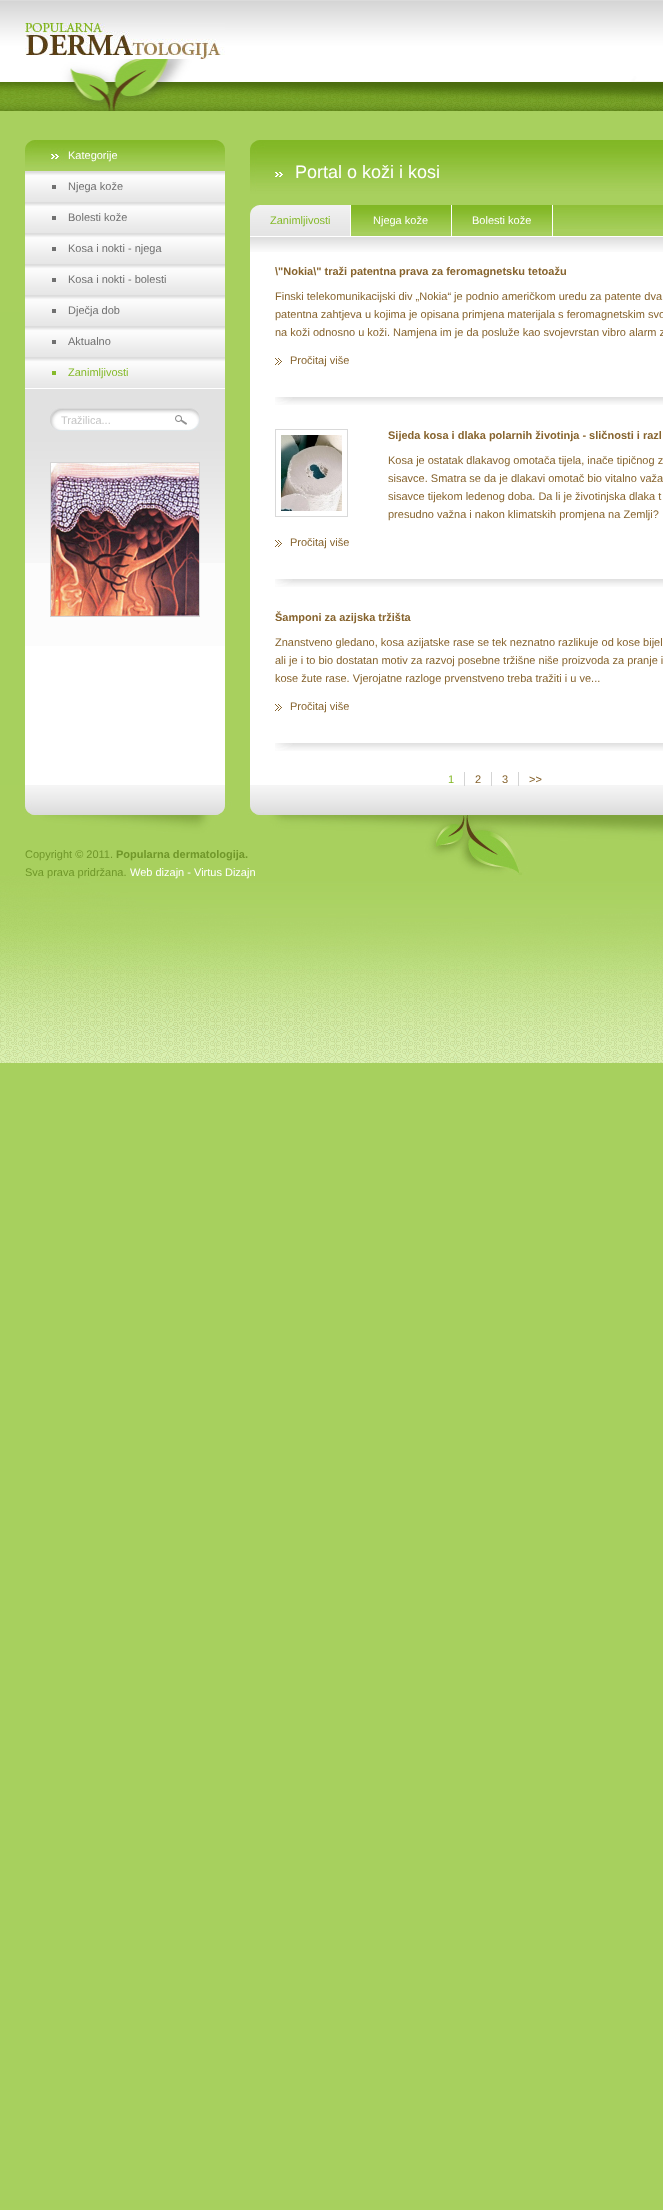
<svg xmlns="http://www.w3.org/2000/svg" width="663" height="2210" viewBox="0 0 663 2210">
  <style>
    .t1 { font: 11px Liberation Sans; fill: #fff; }
    .t2 { font: 11px Liberation Sans; fill: #707070; }
    .t3 { font: 11px Liberation Sans; fill: #86ba2b; }
    .t4 { font: 11px Liberation Sans; fill: #c5c5c5; }
    .t5 { font: 18px Liberation Sans; fill: #fff; }
    .t6 { font: bold 11px Liberation Sans; fill: #87642e; }
    .t7 { font: 11px Liberation Sans; fill: #87642e; }
    .t8 { font: 11px Liberation Sans; fill: #80b621; }
    .t9 { font: 11px Liberation Sans; fill: #70972a; }
    .t10 { font: bold 11px Liberation Sans; fill: #70972a; }
  </style>
  <rect width="100%" height="100%" fill="#a7d05e"/>
  <image x="0" y="0" width="663" height="312" href="images/1.png"/>
  <image x="25" y="23" width="200" height="36" href="images/2.png"/>
  <image x="25" y="216" width="638" height="569" href="images/3.png"/>
  <image x="225" y="140" width="438" height="76" href="images/4.png"/>
  <image x="25" y="140" width="200" height="31" href="images/5.png"/>
  <text x="68" y="159" class="t1">Kategorije</text>
  <image x="25" y="171" width="200" height="31" href="images/6.png"/>
  <rect x="52" y="185" width="4" height="4" fill="#707070"/>
  <text x="68" y="190" class="t2">Njega kože</text>
  <image x="25" y="202" width="200" height="31" href="images/6.png"/>
  <rect x="52" y="216" width="4" height="4" fill="#707070"/>
  <text x="68" y="221" class="t2">Bolesti kože</text>
  <image x="25" y="233" width="200" height="31" href="images/6.png"/>
  <rect x="52" y="247" width="4" height="4" fill="#707070"/>
  <text x="68" y="252" class="t2">Kosa i nokti - njega</text>
  <image x="25" y="264" width="200" height="31" href="images/6.png"/>
  <rect x="52" y="278" width="4" height="4" fill="#707070"/>
  <text x="68" y="283" class="t2">Kosa i nokti - bolesti</text>
  <image x="25" y="295" width="200" height="31" href="images/6.png"/>
  <rect x="52" y="309" width="4" height="4" fill="#707070"/>
  <text x="68" y="314" class="t2">Dječja dob</text>
  <image x="25" y="326" width="200" height="31" href="images/6.png"/>
  <rect x="52" y="340" width="4" height="4" fill="#707070"/>
  <text x="68" y="345" class="t2">Aktualno</text>
  <image x="25" y="357" width="200" height="31" href="images/6.png"/>
  <rect x="52" y="371" width="4" height="4" fill="#86ba2b"/>
  <text x="68" y="376" class="t3">Zanimljivosti</text>
  <rect x="25" y="563" width="200" height="83" fill="#fcfcfc"/>
  <image x="25" y="389" width="200" height="174" href="images/7.png"/>
  <image x="50" y="408" width="125" height="23" href="images/8.png"/>
  <text x="61" y="424" class="t4">Tražilica...</text>
  <image x="175" y="408" width="25" height="23" href="images/9.png"/>
  <rect x="50.5" y="462.5" width="149" height="154" fill="none" stroke="#d4d4d4"/>
  <image x="51" y="463" width="148" height="153" href="images/10.png"/>
  <image x="275" y="172" width="8" height="5" href="images/11.png"/>
  <text x="295" y="178" class="t5">Portal o koži i kosi</text>
  <rect x="351" y="229" width="312" height="7" fill="#a7cf5d"/>
  <image x="553" y="205" width="110" height="24" href="images/12.png"/>
  <image x="250" y="205" width="100" height="31" href="images/13.png"/>
  <rect x="350" y="205" width="1" height="1" fill="#fff"/>
  <text x="270" y="224" class="t3">Zanimljivosti</text>
  <image x="351" y="205" width="100" height="27" href="images/14.png"/>
  <rect x="451" y="205" width="1" height="31" fill="#fff"/>
  <text x="373" y="224" class="t1">Njega kože</text>
  <image x="452" y="205" width="100" height="27" href="images/14.png"/>
  <rect x="552" y="205" width="1" height="31" fill="#fff"/>
  <text x="472" y="224" class="t1">Bolesti kože</text>
  <image x="250" y="237" width="413" height="15" href="images/15.png"/>
  <image x="275" y="397" width="388" height="8" href="images/16.png"/>
  <text x="275" y="275" class="t6">\"Nokia\" traži patentna prava za feromagnetsku tetoažu</text>
  <text x="275" y="300" class="t7">Finski telekomunikacijski div „Nokia“ je podnio američkom uredu za patente dva</text>
  <text x="275" y="318" class="t7">patentna zahtjeva u kojima je opisana primjena materijala s feromagnetskim svo</text>
  <text x="275" y="336" class="t7">na koži odnosno u koži. Namjena im je da posluže kao svojevrstan vibro alarm z</text>
  <image x="275" y="358" width="7" height="7" href="images/17.png"/>
  <text x="290" y="364" class="t7">Pročitaj više</text>
  <image x="275" y="579" width="388" height="8" href="images/16.png"/>
  <rect x="275.5" y="429.5" width="72" height="87" fill="none" stroke="#d9d9d9"/>
  <image x="281" y="435" width="61" height="76" href="images/18.png"/>
  <text x="388" y="439" class="t6">Sijeda kosa i dlaka polarnih životinja - sličnosti i razl</text>
  <text x="388" y="464" class="t7">Kosa je ostatak dlakavog omotača tijela, inače tipičnog z</text>
  <text x="388" y="482" class="t7">sisavce. Smatra se da je dlakavi omotač bio vitalno važa</text>
  <text x="388" y="500" class="t7">sisavce tijekom ledenog doba. Da li je životinjska dlaka t</text>
  <text x="388" y="518" class="t7">presudno važna i nakon klimatskih promjena na Zemlji?</text>
  <image x="275" y="540" width="7" height="7" href="images/17.png"/>
  <text x="290" y="546" class="t7">Pročitaj više</text>
  <image x="275" y="743" width="388" height="8" href="images/16.png"/>
  <text x="275" y="621" class="t6">Šamponi za azijska tržišta</text>
  <text x="275" y="646" class="t7">Znanstveno gledano, kosa azijatske rase se tek neznatno razlikuje od kose bijel</text>
  <text x="275" y="664" class="t7">ali je i to bio dostatan motiv za razvoj posebne tržišne niše proizvoda za pranje i</text>
  <text x="275" y="682" class="t7">kose žute rase. Vjerojatne razloge prvenstveno treba tražiti i u ve...</text>
  <image x="275" y="704" width="7" height="7" href="images/17.png"/>
  <text x="290" y="710" class="t7">Pročitaj više</text>
  <text x="448" y="783" class="t8">1</text>
  <image x="0" y="785" width="663" height="278" href="images/19.png"/>
  <rect x="464" y="772" width="1" height="14" fill="#d4d4d4"/>
  <text x="475" y="783" class="t7">2</text>
  <rect x="491" y="772" width="1" height="14" fill="#d4d4d4"/>
  <text x="502" y="783" class="t7">3</text>
  <rect x="518" y="772" width="1" height="14" fill="#d4d4d4"/>
  <text x="529" y="783" class="t7">&gt;&gt;</text>
  <text x="25" y="858" class="t9">Copyright © 2011.</text>
  <text x="116" y="858" class="t10">Popularna dermatologija.</text>
  <text x="25" y="876" class="t9">Sva prava pridržana.</text>
  <text x="130" y="876" class="t1">Web dizajn - Virtus Dizajn</text>
</svg>
